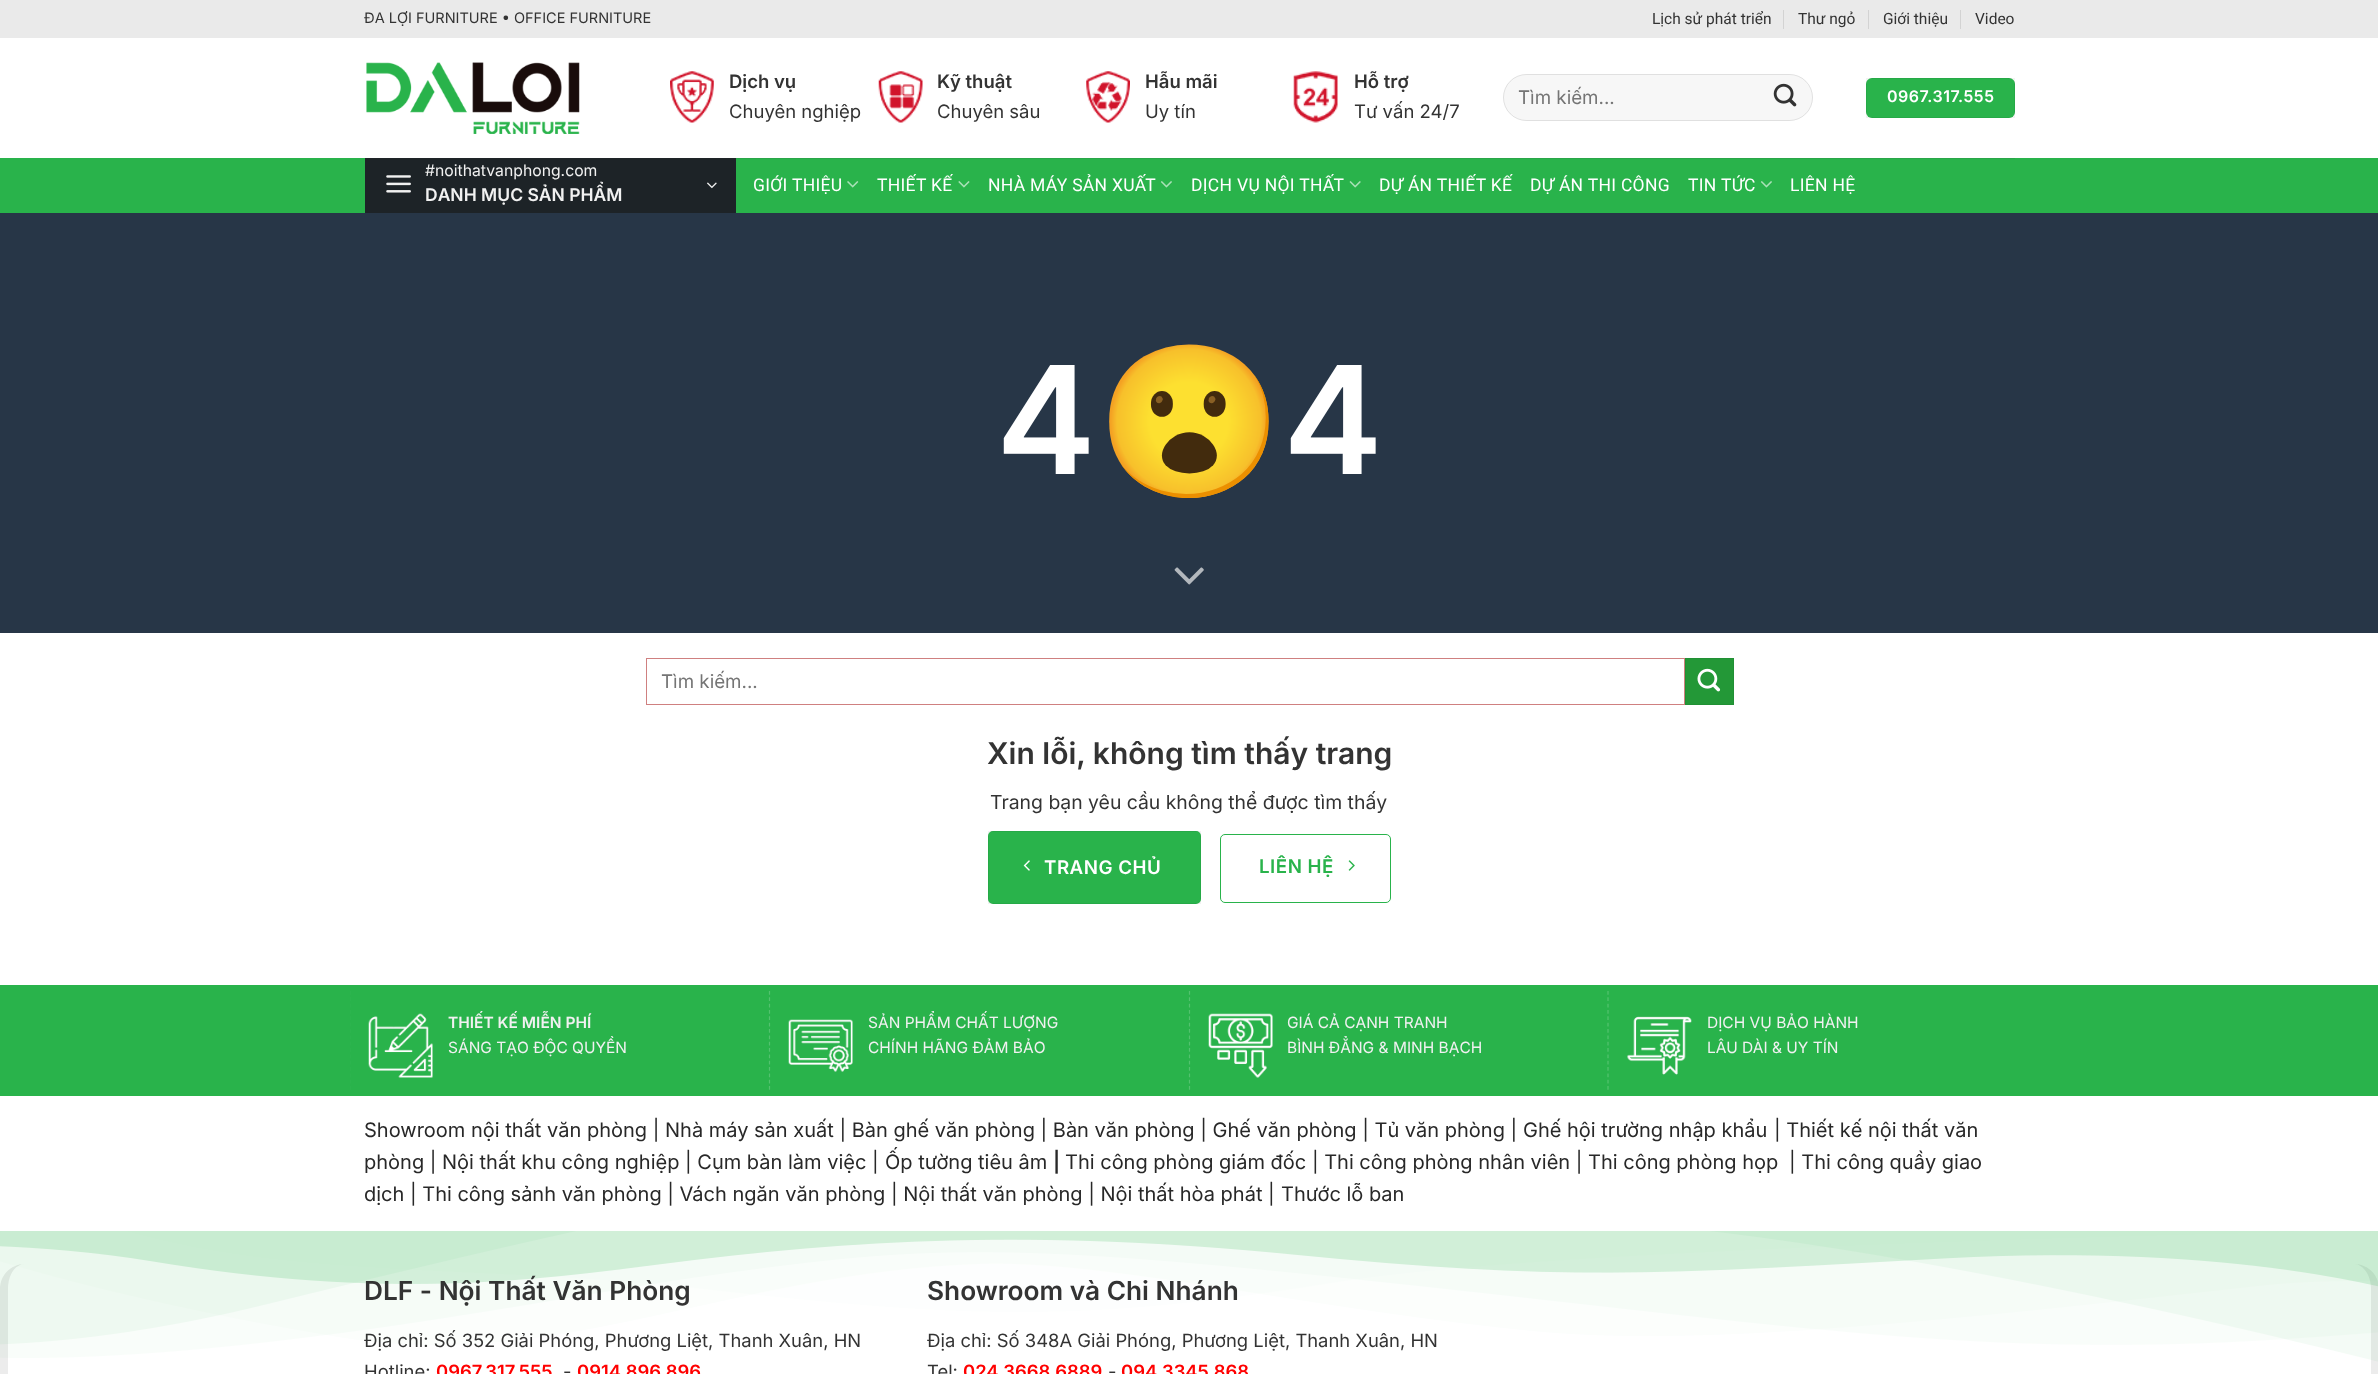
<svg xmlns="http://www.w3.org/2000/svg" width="2378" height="1374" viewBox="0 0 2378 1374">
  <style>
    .t1 { font: 14.5px Inter; fill: #333; }
    .t2 { font: 15.5px Roboto; fill: #333; }
    .t3 { font: 600 18.5px Inter; fill: #333; }
    .t4 { font: 18.5px Inter; fill: #333; }
    .t5 { font: 18.75px Inter; fill: #757575; }
    .t6 { font: 600 16px Inter; letter-spacing: 0.5px; fill: #fff; }
    .t7 { font: 15.75px Inter; fill: #f1f1f1; }
    .t8 { font: 600 17.5px Inter; fill: #f1f1f1; }
    .t9 { font: 17.5px Roboto; letter-spacing: 0.3px; fill: #fff; }
    .t10 { font: 600 150px Inter; fill: #fff; }
    .t11 { font: bold 150px Noto Color Emoji; fill: #fff; }
    .t12 { font: 600 30px Inter; fill: #333; }
    .t13 { font: 19.4px Inter; fill: #333; }
    .t14 { font: 600 18.75px Inter; letter-spacing: 0.5px; fill: #fff; }
    .t15 { font: 600 18.75px Inter; letter-spacing: 0.5px; fill: #29b34b; }
    .t16 { font: 600 15.5px Inter; fill: #f1f1f1; }
    .t17 { font: 15.5px Inter; fill: #f1f1f1; }
    .t18 { font: 20px Inter; fill: #282828; }
    .t19 { font: 600 20px Inter; fill: #282828; }
    .t20 { font: 600 26.25px Inter; fill: #333; }
    .t21 { font: 18.4px Inter; fill: #333; }
    .t22 { font: 600 18.4px Inter; fill: #f00; }
  </style>
  <defs>
    <clipPath id="clip1"><rect x="350" y="991" width="1679" height="99"/></clipPath>
  </defs>
  <rect width="100%" height="100%" fill="#fff"/>
  <rect x="0" y="0" width="2378" height="38" fill="#eaeaea"/>
  <text x="364" y="23" class="t1">ĐA LỢI FURNITURE • OFFICE FURNITURE</text>
  <text x="1652" y="24" class="t2">Lịch sử phát triển</text>
  <rect x="1783" y="10" width="1" height="19" fill="#d3d3d3"/>
  <text x="1798" y="24" class="t2">Thư ngỏ</text>
  <rect x="1868" y="10" width="1" height="19" fill="#d3d3d3"/>
  <text x="1883" y="24" class="t2">Giới thiệu</text>
  <rect x="1960" y="10" width="1" height="19" fill="#d3d3d3"/>
  <text x="1975" y="24" class="t2">Video</text>
  <image x="366" y="62" width="214" height="72" href="images/1.png"/>
  <image x="670" y="71" width="44" height="52" href="images/2.png"/>
  <text x="729" y="88" class="t3">Dịch vụ</text>
  <text x="729" y="118" class="t4">Chuyên nghiệp</text>
  <image x="878" y="71" width="45" height="52" href="images/3.png"/>
  <text x="937" y="88" class="t3">Kỹ thuật</text>
  <text x="937" y="118" class="t4">Chuyên sâu</text>
  <image x="1086" y="71" width="44" height="52" href="images/4.png"/>
  <text x="1145" y="88" class="t3">Hẫu mãi</text>
  <text x="1145" y="118" class="t4">Uy tín</text>
  <image x="1293" y="71" width="45" height="52" href="images/5.png"/>
  <text x="1354" y="88" class="t3">Hỗ trợ</text>
  <text x="1354" y="118" class="t4">Tư vấn 24/7</text>
  <rect x="1503" y="74" width="310" height="47" rx="23.5" fill="#f7f7f7"/>
  <rect x="1503.5" y="74.5" width="309" height="46" rx="23" fill="none" stroke="#00000017"/>
  <text x="1518" y="104" class="t5">Tìm kiếm...</text>
  <image x="1773" y="83" width="24" height="24" href="images/6.png"/>
  <rect x="1866" y="78" width="149" height="40" rx="6" fill="#29b34b"/>
  <rect x="1866.5" y="78.5" width="148" height="39" fill="none" stroke="#0000000d"/>
  <text x="1887" y="102" class="t6">0967.317.555</text>
  <rect x="0" y="158" width="2378" height="55" fill="#29b34b"/>
  <rect x="736" y="158" width="1279" height="1" fill="#2aa649"/>
  <rect x="365" y="159" width="371" height="54" fill="#1d2327"/>
  <rect x="365" y="158" width="371" height="1" fill="#1f2528"/>
  <image x="386" y="175" width="25" height="18" href="images/7.png"/>
  <text x="425" y="176" class="t7">#noithatvanphong.com</text>
  <text x="425" y="201" class="t8">DANH MỤC SẢN PHẨM</text>
  <image x="707" y="182" width="10" height="7" href="images/8.png"/>
  <text x="753" y="191" class="t9">GIỚI THIỆU</text>
  <image x="847" y="181" width="12" height="7" href="images/9.png"/>
  <text x="877" y="191" class="t9">THIẾT KẾ</text>
  <image x="958" y="181" width="12" height="7" href="images/10.png"/>
  <text x="988" y="191" class="t9">NHÀ MÁY SẢN XUẤT</text>
  <image x="1161" y="181" width="11" height="7" href="images/11.png"/>
  <text x="1191" y="191" class="t9">DỊCH VỤ NỘI THẤT</text>
  <image x="1349" y="181" width="12" height="7" href="images/12.png"/>
  <text x="1379" y="191" class="t9">DỰ ÁN THIẾT KẾ</text>
  <text x="1530" y="191" class="t9">DỰ ÁN THI CÔNG</text>
  <text x="1688" y="191" class="t9">TIN TỨC</text>
  <image x="1761" y="181" width="11" height="7" href="images/11.png"/>
  <text x="1790" y="191" class="t9">LIÊN HỆ</text>
  <rect x="0" y="213" width="2378" height="420" fill="#273647"/>
  <text x="996" y="474" class="t10">4</text>
  <text x="1096" y="474" class="t11">😮</text>
  <text x="1283" y="474" class="t10">4</text>
  <image x="1174" y="567" width="30" height="18" href="images/13.png"/>
  <rect x="646.5" y="658.5" width="1038" height="46" fill="none" stroke="#cf8080"/>
  <text x="661" y="688" class="t5">Tìm kiếm...</text>
  <rect x="1685.5" y="658.5" width="48" height="46" fill="#239837" stroke="#219034"/>
  <image x="1697" y="668" width="24" height="24" href="images/14.png"/>
  <text x="987" y="764" class="t12">Xin lỗi, không tìm thấy trang</text>
  <text x="990" y="809" class="t13">Trang bạn yêu cầu không thể được tìm thấy</text>
  <rect x="988" y="831" width="213" height="73" rx="5" fill="#29b34b"/>
  <rect x="988.5" y="831.5" width="212" height="72" fill="none" stroke="#0000000d"/>
  <image x="1023" y="860" width="7" height="11" href="images/15.png"/>
  <text x="1044" y="874" class="t14">TRANG CHỦ</text>
  <rect x="1220.5" y="834.5" width="170" height="68" rx="4.5" fill="none" stroke="#29b34b"/>
  <text x="1259" y="873" class="t15">LIÊN HỆ</text>
  <image x="1348" y="860" width="7" height="11" href="images/16.png"/>
  <rect x="0" y="985" width="2378" height="111" fill="#29b34b"/>
  <g clip-path="url(#clip1)">
    <path d="M349.5 991V1090" fill="none" stroke="#54c26f" stroke-width="1.2" stroke-dasharray="3.75 2.59"/>
  </g>
  <image x="368" y="1013" width="65" height="65" href="images/17.png"/>
  <text x="448" y="1028" class="t16">THIẾT KẾ MIỄN PHÍ</text>
  <text x="448" y="1053" class="t17">SÁNG TẠO ĐỘC QUYỀN</text>
  <g clip-path="url(#clip1)">
    <path d="M350 1090.5H770" fill="none" stroke="#ffffff33" stroke-width="1.2" stroke-dasharray="3.75 2.46"/>
  </g>
  <path d="M769.5 991V1090" fill="none" stroke="#ffffff33" stroke-width="1.2" stroke-dasharray="3.75 2.59"/>
  <image x="788" y="1019" width="65" height="53" href="images/18.png"/>
  <text x="868" y="1028" class="t17">SẢN PHẨM CHẤT LƯỢNG</text>
  <text x="868" y="1053" class="t17">CHÍNH HÃNG ĐẢM BẢO</text>
  <g clip-path="url(#clip1)">
    <path d="M770 1090.5H1190" fill="none" stroke="#ffffff33" stroke-width="1.2" stroke-dasharray="3.75 2.46"/>
  </g>
  <path d="M1189.5 991V1090" fill="none" stroke="#ffffff33" stroke-width="1.2" stroke-dasharray="3.75 2.59"/>
  <image x="1208" y="1013" width="65" height="65" href="images/19.png"/>
  <text x="1287" y="1028" class="t17">GIÁ CẢ CẠNH TRANH</text>
  <text x="1287" y="1053" class="t17">BÌNH ĐẲNG &amp; MINH BẠCH</text>
  <g clip-path="url(#clip1)">
    <path d="M1190 1090.5H1609" fill="none" stroke="#ffffff33" stroke-width="1.2" stroke-dasharray="3.75 2.54"/>
  </g>
  <path d="M1608 991V1090" fill="none" stroke="#ffffff33" stroke-width="1.2" stroke-dasharray="3.75 2.59"/>
  <image x="1627" y="1016" width="65" height="59" href="images/20.png"/>
  <text x="1707" y="1028" class="t17">DỊCH VỤ BẢO HÀNH</text>
  <text x="1707" y="1053" class="t17">LÂU DÀI &amp; UY TÍN</text>
  <g clip-path="url(#clip1)">
    <path d="M1609 1090.5H2029" fill="none" stroke="#54c26f" stroke-width="1.2" stroke-dasharray="3.75 2.46"/>
  </g>
  <text x="364" y="1137" class="t18">Showroom nội thất văn phòng | Nhà máy sản xuất | Bàn ghế văn phòng | Bàn văn phòng | Ghế văn phòng | Tủ văn phòng |</text>
  <text x="1523" y="1137" class="t18">Ghế hội trường nhập khẩu</text>
  <text x="1774" y="1137" class="t18">| Thiết kế nội thất văn</text>
  <text x="364" y="1169" class="t18">phòng | Nội thất khu công nghiệp | Cụm bàn làm việc |</text>
  <text x="885" y="1169" class="t18">Ốp tường tiêu âm</text>
  <text x="1053" y="1169" class="t19">|</text>
  <text x="1065" y="1169" class="t18">Thi công phòng giám đốc | Thi công phòng nhân viên | Thi công phòng họp</text>
  <text x="1789" y="1169" class="t18">| Thi công quầy giao</text>
  <text x="364" y="1201" class="t18">dịch | Thi công sảnh văn phòng | Vách ngăn văn phòng | Nội thất văn phòng | Nội thất hòa phát |</text>
  <text x="1281" y="1201" class="t18">Thước lỗ ban</text>
  <path d="M25 1264H2354C2368 1264 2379 1275 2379 1289V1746C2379 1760 2368 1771 2354 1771H25C11 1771 0 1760 0 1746V1289C0 1275 11 1264 25 1264ZM25 1264H2354C2363 1264 2371 1275 2371 1289V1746H8V1289C8 1275 15 1264 25 1264Z" fill="#ececec" fill-rule="evenodd"/>
  <image x="0" y="1231" width="2378" height="131" href="images/21.png"/>
  <text x="364" y="1300" class="t20">DLF - Nội Thất Văn Phòng</text>
  <text x="364" y="1347" class="t21">Địa chỉ: Số 352 Giải Phóng, Phương Liệt, Thanh Xuân, HN</text>
  <text x="364" y="1378" class="t21">Hotline:</text>
  <text x="436" y="1378" class="t22">0967.317.555</text>
  <text x="563" y="1378" class="t21">-</text>
  <text x="577" y="1378" class="t22">0914.896.896</text>
  <text x="927" y="1300" class="t20">Showroom và Chi Nhánh</text>
  <text x="927" y="1347" class="t21">Địa chỉ: Số 348A Giải Phóng, Phương Liệt, Thanh Xuân, HN</text>
  <text x="927" y="1378" class="t21">Tel:</text>
  <text x="963" y="1378" class="t22">024.3668.6889</text>
  <text x="1108" y="1378" class="t21">-</text>
  <text x="1121" y="1378" class="t22">094.3345.868</text>
</svg>
